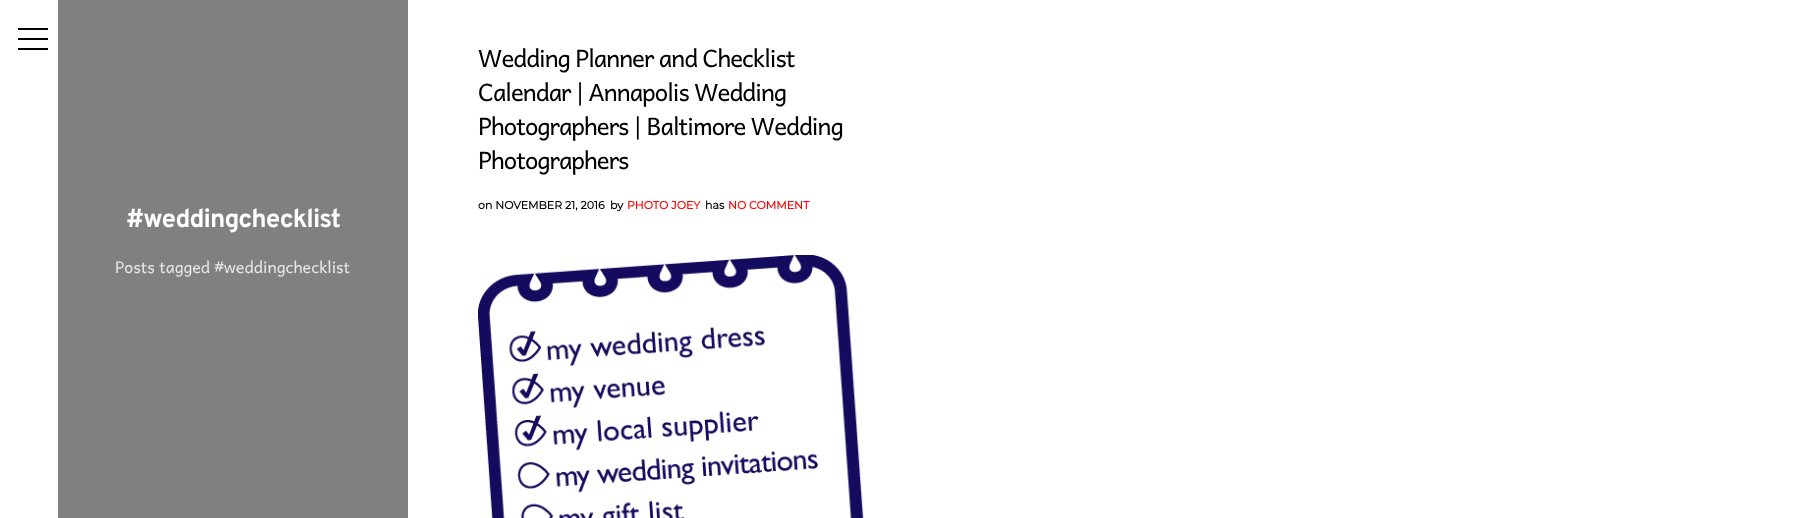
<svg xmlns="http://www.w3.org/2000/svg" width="1812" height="518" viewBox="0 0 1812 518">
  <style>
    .t1 { font: 24px Andika; letter-spacing: -1px; fill: #000; }
    .t2 { font: bold 11px Montserrat; fill: #000; }
    .t3 { font: bold 11px Montserrat; fill: #f00; }
    .t4 { font: bold 26px Overpass; letter-spacing: -1px; fill: #fff; }
    .t5 { font: 16px Andika; fill: #e6e6e6; }
  </style>
  <rect width="100%" height="100%" fill="#fff"/>
  <rect x="18" y="38" width="30" height="2" fill="#000"/>
  <rect x="18" y="28" width="30" height="2" fill="#000"/>
  <rect x="18" y="48" width="30" height="2" fill="#000"/>
  <text x="478" y="67" class="t1">Wedding Planner and Checklist</text>
  <text x="478" y="101" class="t1">Calendar | Annapolis Wedding</text>
  <text x="478" y="135" class="t1">Photographers | Baltimore Wedding</text>
  <text x="478" y="169" class="t1">Photographers</text>
  <text x="478" y="209" class="t2">on NOVEMBER 21, 2016</text>
  <text x="610" y="209" class="t2">by</text>
  <text x="627" y="209" class="t3">PHOTO JOEY</text>
  <text x="705" y="209" class="t2">has</text>
  <text x="728" y="209" class="t3">NO COMMENT</text>
  <image x="478" y="255" width="386" height="263" href="images/1.png"/>
  <rect x="58" y="0" width="350" height="518" fill="#808080"/>
  <text x="126" y="227" class="t4">#weddingchecklist</text>
  <text x="115" y="273" class="t5">Posts tagged #weddingchecklist</text>
</svg>
